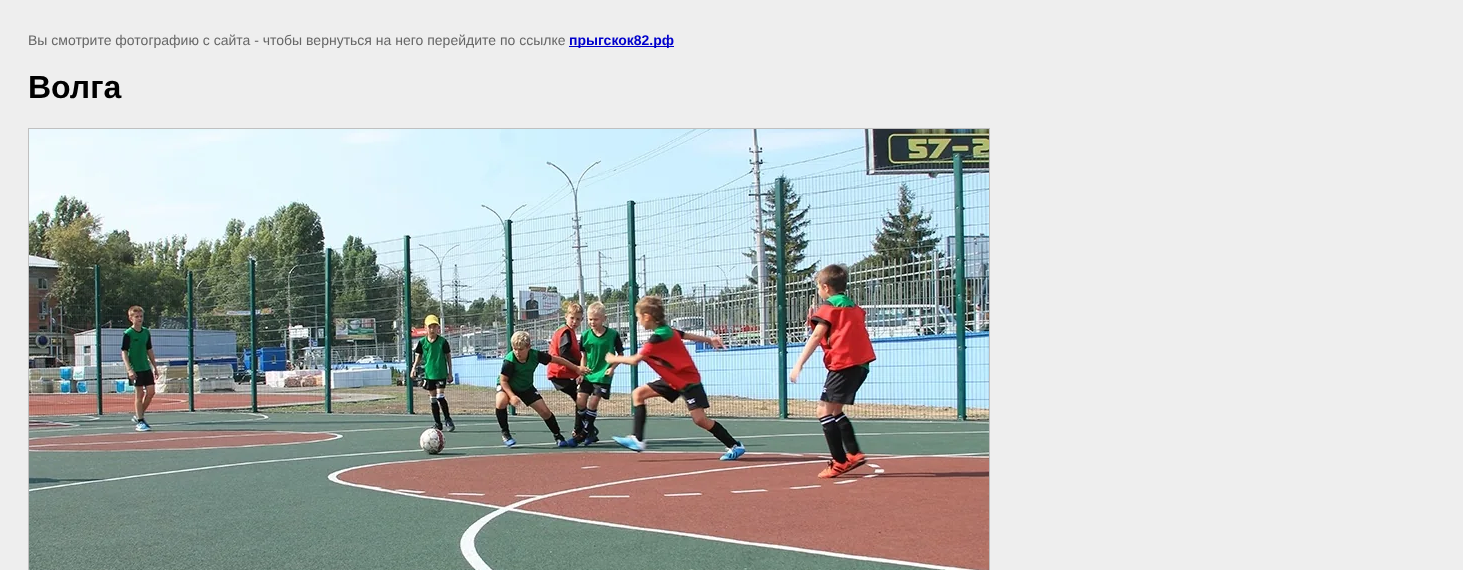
<svg xmlns="http://www.w3.org/2000/svg" width="1463" height="570" viewBox="0 0 1463 570">
  <style>
    .t1 { font: 14px Liberation Sans; fill: #666; }
    .t2 { font: bold 14px Liberation Sans; fill: #00c; }
    .t3 { font: bold 32px Liberation Sans; fill: #000; }
  </style>
  <rect width="100%" height="100%" fill="#eee"/>
  <text x="28" y="45" class="t1">Вы смотрите фотографию с сайта - чтобы вернуться на него перейдите по ссылке</text>
  <rect x="569" y="46" width="105" height="1" fill="#00c"/>
  <text x="569" y="45" class="t2">прыгскок82.рф</text>
  <text x="28" y="98" class="t3">Волга</text>
  <rect x="28.5" y="128.5" width="961" height="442" fill="none" stroke="#c0c0c0"/>
  <image x="29" y="129" width="960" height="441" href="images/1.png"/>
</svg>
